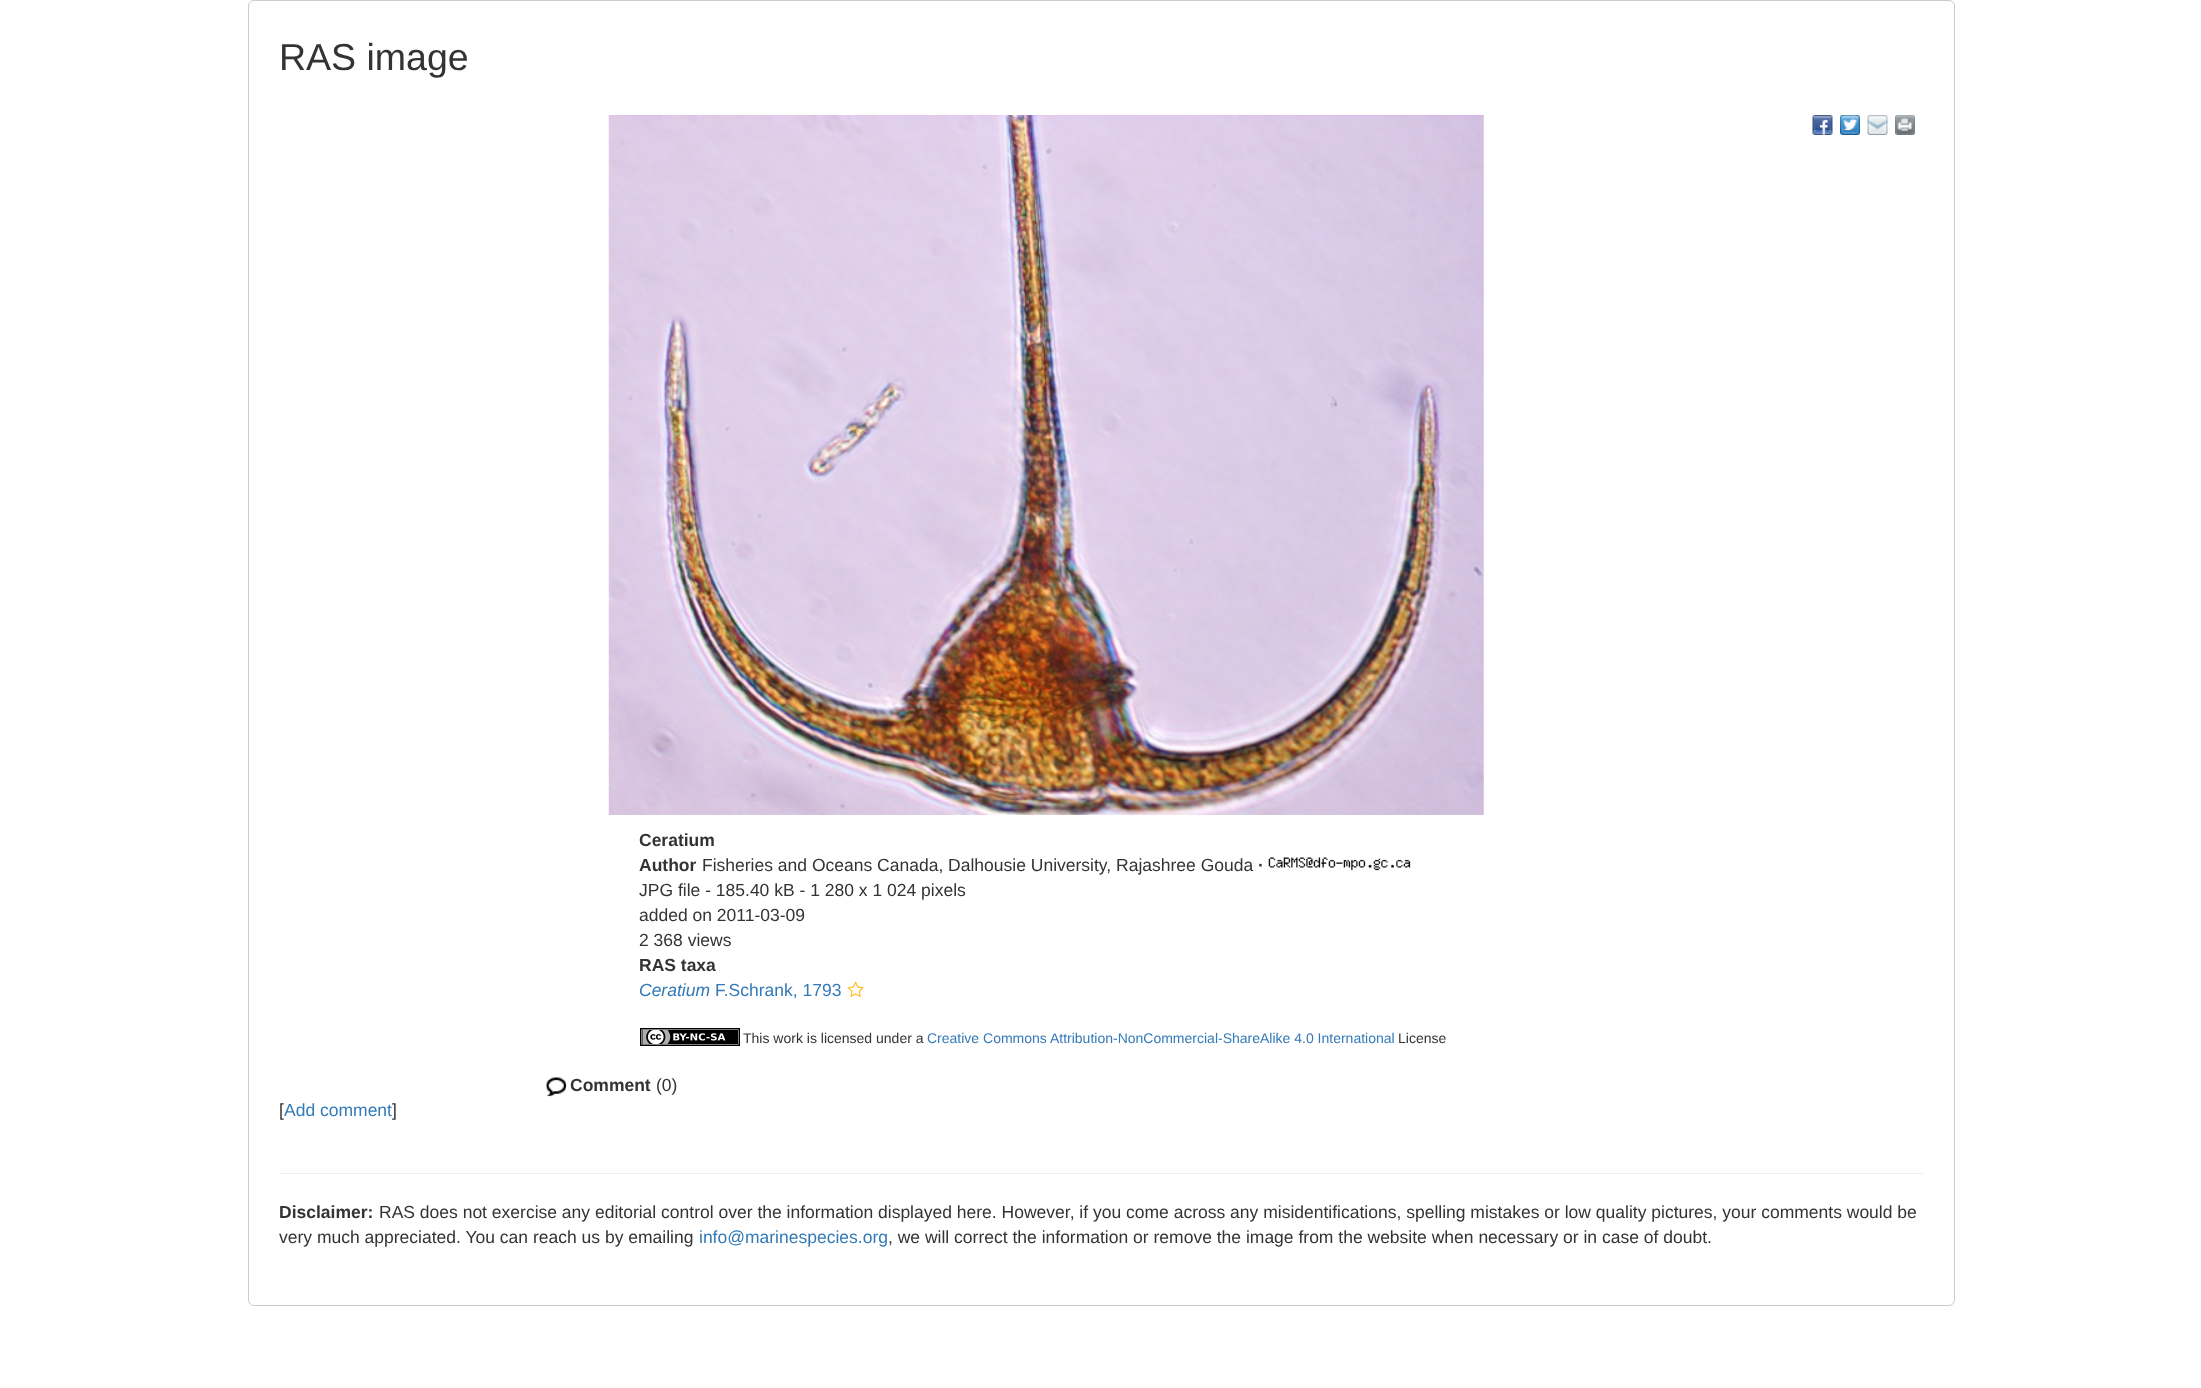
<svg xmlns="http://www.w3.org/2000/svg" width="2201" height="1388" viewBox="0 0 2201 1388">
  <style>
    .t1 { font: 37.5px Liberation Sans; fill: #333; }
    .t2 { font: bold 17.5px Liberation Sans; fill: #333; }
    .t3 { font: 17.5px Liberation Sans; fill: #333; }
    .t4 { font: italic 17.5px Liberation Sans; fill: #337ab7; }
    .t5 { font: 17.5px Liberation Sans; fill: #337ab7; }
    .t6 { font: 14px Liberation Sans; fill: #333; }
    .t7 { font: 14px Liberation Sans; fill: #337ab7; }
  </style>
  <rect width="100%" height="100%" fill="#fff"/>
  <rect x="248.5" y="0.5" width="1706" height="1305" rx="5.5" fill="none" stroke="#ccc"/>
  <text x="279" y="70" class="t1">RAS image</text>
  <image x="1812" y="115" width="21" height="20" href="images/1.png"/>
  <image x="1840" y="115" width="20" height="20" href="images/2.png"/>
  <image x="1867" y="115" width="21" height="20" href="images/3.png"/>
  <image x="1895" y="115" width="20" height="20" href="images/4.png"/>
  <image x="608" y="115" width="876" height="700" href="images/5.png"/>
  <text x="639" y="846" class="t2">Ceratium</text>
  <text x="639" y="871" class="t2">Author</text>
  <text x="702" y="871" class="t3">Fisheries and Oceans Canada, Dalhousie University, Rajashree Gouda</text>
  <text x="1258" y="871" class="t2">·</text>
  <image x="1268" y="857" width="143" height="14" href="images/6.png"/>
  <text x="639" y="896" class="t3">JPG file - 185.40 kB - 1 280 x 1 024 pixels</text>
  <text x="639" y="921" class="t3">added on 2011-03-09</text>
  <text x="639" y="946" class="t3">2 368 views</text>
  <text x="639" y="971" class="t2">RAS taxa</text>
  <text x="639" y="996" class="t4">Ceratium</text>
  <text x="715" y="996" class="t5">F.Schrank, 1793</text>
  <image x="847" y="981" width="17" height="16" href="images/7.png"/>
  <image x="640" y="1028" width="100" height="18" href="images/8.png"/>
  <text x="743" y="1043" class="t6">This work is licensed under a</text>
  <text x="927" y="1043" class="t7">Creative Commons Attribution-NonCommercial-ShareAlike 4.0 International</text>
  <text x="1398" y="1043" class="t6">License</text>
  <image x="546" y="1077" width="21" height="20" href="images/9.png"/>
  <text x="570" y="1091" class="t2">Comment</text>
  <text x="656" y="1091" class="t3">(0)</text>
  <text x="279" y="1116" class="t3">[</text>
  <text x="284" y="1116" class="t5">Add comment</text>
  <text x="392" y="1116" class="t3">]</text>
  <rect x="280" y="1173" width="1643" height="1" fill="#eee"/>
  <text x="279" y="1218" class="t2">Disclaimer:</text>
  <text x="379" y="1218" class="t3">RAS does not exercise any editorial control over the information displayed here. However, if you come across any misidentifications, spelling mistakes or low quality pictures, your comments would be</text>
  <text x="279" y="1243" class="t3">very much appreciated. You can reach us by emailing</text>
  <text x="699" y="1243" class="t5">info@marinespecies.org</text>
  <text x="888" y="1243" class="t3">, we will correct the information or remove the image from the website when necessary or in case of doubt.</text>
</svg>
